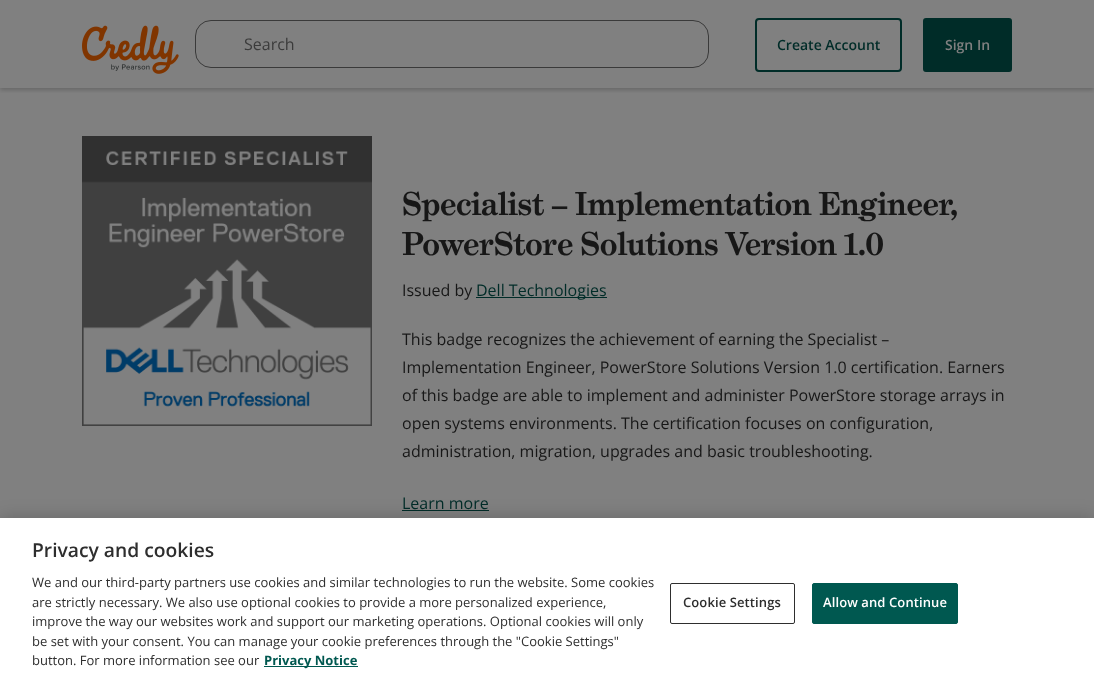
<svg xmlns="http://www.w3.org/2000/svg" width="1094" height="681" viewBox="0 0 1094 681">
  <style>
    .t1 { font: 16px Open Sans; fill: #3b3b3b; }
    .t2 { font: 600 14px Open Sans; fill: #002c28; }
    .t3 { font: 600 14px Open Sans; fill: #808080; }
    .t4 { font: bold 32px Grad; fill: #171717; }
    .t5 { font: 16px Open Sans; fill: #171717; }
    .t6 { font: 16px Open Sans; fill: #002c28; }
    .t7 { font: 600 19.25px Open Sans; fill: #2e2e2e; }
    .t8 { font: 13px Open Sans; fill: #2e2e2e; }
    .t9 { font: bold 13px Open Sans; fill: #005850; }
    .t10 { font: 600 13px Open Sans; letter-spacing: 0.1px; fill: #2e2e2e; }
    .t11 { font: 600 13px Open Sans; letter-spacing: 0.1px; fill: #fefefe; }
  </style>
  <defs>
    <clipPath id="clip1"><rect x="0" y="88" width="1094" height="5"/></clipPath>
  </defs>
  <rect width="100%" height="100%" fill="#808080"/>
  <g clip-path="url(#clip1)">
    <rect x="0" y="2" width="1094" height="88" fill="#00000033" filter="blur(2px)"/>
  </g>
  <image x="82" y="25" width="97" height="49" href="images/1.png"/>
  <rect x="195.5" y="20.5" width="513" height="47" rx="15.5" fill="none" stroke="#3a3a3a"/>
  <text x="244" y="50" class="t1">Search</text>
  <rect x="756" y="19" width="145" height="52" rx="3" fill="none" stroke="#002c28" stroke-width="2"/>
  <text x="777" y="50" class="t2">Create Account</text>
  <rect x="924" y="19" width="87" height="52" rx="2" fill="#002c28" stroke="#002c28" stroke-width="2"/>
  <text x="945" y="50" class="t3">Sign In</text>
  <image x="82" y="136" width="290" height="290" href="images/2.png"/>
  <text x="402" y="215" class="t4">Specialist – Implementation Engineer,</text>
  <text x="402" y="255" class="t4">PowerStore Solutions Version 1.0</text>
  <text x="402" y="296" class="t5">Issued by</text>
  <rect x="476" y="297" width="131" height="1" fill="#002c28"/>
  <text x="476" y="296" class="t6">Dell Technologies</text>
  <text x="402" y="345" class="t5">This badge recognizes the achievement of earning the Specialist –</text>
  <text x="402" y="373" class="t5">Implementation Engineer, PowerStore Solutions Version 1.0 certification. Earners</text>
  <text x="402" y="401" class="t5">of this badge are able to implement and administer PowerStore storage arrays in</text>
  <text x="402" y="429" class="t5">open systems environments. The certification focuses on configuration,</text>
  <text x="402" y="457" class="t5">administration, migration, upgrades and basic troubleshooting.</text>
  <text x="402" y="509" class="t6">Learn more</text>
  <rect x="402" y="510" width="87" height="1" fill="#002c28"/>
  <rect x="0" y="518" width="1094" height="163" fill="#00000033" filter="blur(9px)"/>
  <rect x="0" y="518" width="1094" height="163" fill="#fff"/>
  <text x="32" y="557" class="t7">Privacy and cookies</text>
  <text x="32" y="587" class="t8">We and our third-party partners use cookies and similar technologies to run the website. Some cookies</text>
  <text x="32" y="607" class="t8">are strictly necessary. We also use optional cookies to provide a more personalized experience,</text>
  <text x="32" y="626" class="t8">improve the way our websites work and support our marketing operations. Optional cookies will only</text>
  <text x="32" y="646" class="t8">be set with your consent. You can manage your cookie preferences through the "Cookie Settings"</text>
  <text x="32" y="665" class="t8">button. For more information see our</text>
  <rect x="264" y="666" width="94" height="1" fill="#005850"/>
  <text x="264" y="665" class="t9">Privacy Notice</text>
  <rect x="670.5" y="583.5" width="124" height="40" rx="1.5" fill="none" stroke="#2e2e2e"/>
  <text x="683" y="607" class="t10">Cookie Settings</text>
  <rect x="812.5" y="583.5" width="145" height="40" rx="1.5" fill="#005850" stroke="#005850"/>
  <text x="823" y="607" class="t11">Allow and Continue</text>
</svg>
